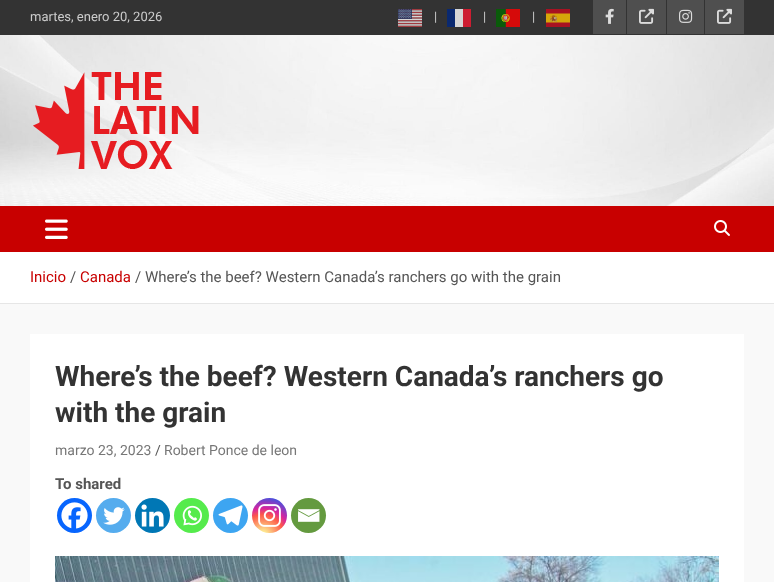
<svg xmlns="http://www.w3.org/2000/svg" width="774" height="582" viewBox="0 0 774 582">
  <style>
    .t1 { font: 13px Roboto; fill: #ccc; }
    .t2 { font: 15px Roboto; fill: #c80000; }
    .t3 { font: 15px Roboto; fill: #555; }
    .t4 { font: bold 28px Roboto; fill: #333; }
    .t5 { font: 14px Roboto; fill: #777; }
    .t6 { font: 14px Roboto; fill: #555; }
    .t7 { font: bold 15px Roboto; fill: #555; }
  </style>
  <defs>
    <radialGradient id="g1" gradientUnits="userSpaceOnUse" cx="263" cy="535" r="45"><stop offset="0" stop-color="#fdf497"/><stop offset="0.05" stop-color="#fdf497"/><stop offset="0.45" stop-color="#fd5949"/><stop offset="0.6" stop-color="#d6249f"/><stop offset="0.9" stop-color="#285aeb"/></radialGradient>
  </defs>
  <rect width="100%" height="100%" fill="#f9f9f9"/>
  <rect x="0" y="0" width="774" height="35" fill="#333"/>
  <text x="30" y="21" class="t1">martes, enero 20, 2026</text>
  <image x="398" y="9" width="24" height="18" href="images/1.png"/>
  <text x="434" y="21" class="t1">|</text>
  <rect x="447" y="9" width="8" height="18" fill="#0a2970"/>
  <rect x="455" y="9" width="8" height="18" fill="#d6d6d6"/>
  <rect x="463" y="9" width="8" height="18" fill="#cd1d31"/>
  <text x="483" y="21" class="t1">|</text>
  <image x="496" y="9" width="24" height="18" href="images/2.png"/>
  <text x="532" y="21" class="t1">|</text>
  <image x="546" y="9" width="24" height="18" href="images/3.png"/>
  <rect x="593" y="0" width="33" height="34" fill="#4f4f4f"/>
  <image x="605" y="8" width="9" height="16" href="images/4.png"/>
  <rect x="627" y="0" width="39" height="34" fill="#4f4f4f"/>
  <image x="639" y="8" width="15" height="16" href="images/5.png"/>
  <rect x="667" y="0" width="37" height="34" fill="#4f4f4f"/>
  <image x="679" y="9" width="14" height="14" href="images/6.png"/>
  <rect x="705" y="0" width="39" height="34" fill="#4f4f4f"/>
  <image x="717" y="8" width="15" height="16" href="images/5.png"/>
  <image x="0" y="35" width="774" height="171" href="images/7.png"/>
  <image x="33" y="72" width="166" height="97" href="images/8.png"/>
  <rect x="0" y="206" width="774" height="46" fill="#c80000"/>
  <image x="45" y="219" width="23" height="20" href="images/9.png"/>
  <image x="714" y="220" width="16" height="16" href="images/10.png"/>
  <rect x="0" y="252" width="774" height="51" fill="#fff"/>
  <rect x="0" y="303" width="774" height="1" fill="#e6e6e6"/>
  <text x="30" y="282" class="t2">Inicio</text>
  <text x="70" y="282" class="t3">/</text>
  <text x="80" y="282" class="t2">Canada</text>
  <text x="135" y="282" class="t3">/ Where’s the beef? Western Canada’s ranchers go with the grain</text>
  <rect x="30" y="334" width="714" height="248" fill="#fff"/>
  <text x="55" y="386" class="t4">Where’s the beef? Western Canada’s ranchers go</text>
  <text x="55" y="422" class="t4">with the grain</text>
  <text x="55" y="455" class="t5">marzo 23, 2023</text>
  <text x="155" y="455" class="t6">/</text>
  <text x="164" y="455" class="t5">Robert Ponce de leon</text>
  <text x="55" y="489" class="t7">To shared</text>
  <circle cx="74.5" cy="515.5" r="17.5" fill="#0765fe"/>
  <image x="61" y="502" width="27" height="27" href="images/11.png"/>
  <circle cx="113.5" cy="515.5" r="17.5" fill="#55acee"/>
  <image x="103" y="507" width="22" height="18" href="images/12.png"/>
  <circle cx="152.5" cy="515.5" r="17.5" fill="#0077b5"/>
  <image x="141" y="504" width="23" height="23" href="images/13.png"/>
  <circle cx="191.5" cy="515.5" r="17.5" fill="#55eb4c"/>
  <image x="182" y="505" width="20" height="21" href="images/14.png"/>
  <circle cx="230.5" cy="515.5" r="17.5" fill="#3da5f1"/>
  <image x="218" y="505" width="25" height="21" href="images/15.png"/>
  <circle cx="269.5" cy="515.5" r="17.5" fill="url(#g1)"/>
  <image x="258" y="504" width="23" height="23" href="images/16.png"/>
  <circle cx="308.5" cy="515.5" r="17.5" fill="#649a3f"/>
  <image x="298" y="509" width="22" height="13" href="images/17.png"/>
  <image x="55" y="556" width="664" height="26" href="images/18.png"/>
</svg>
